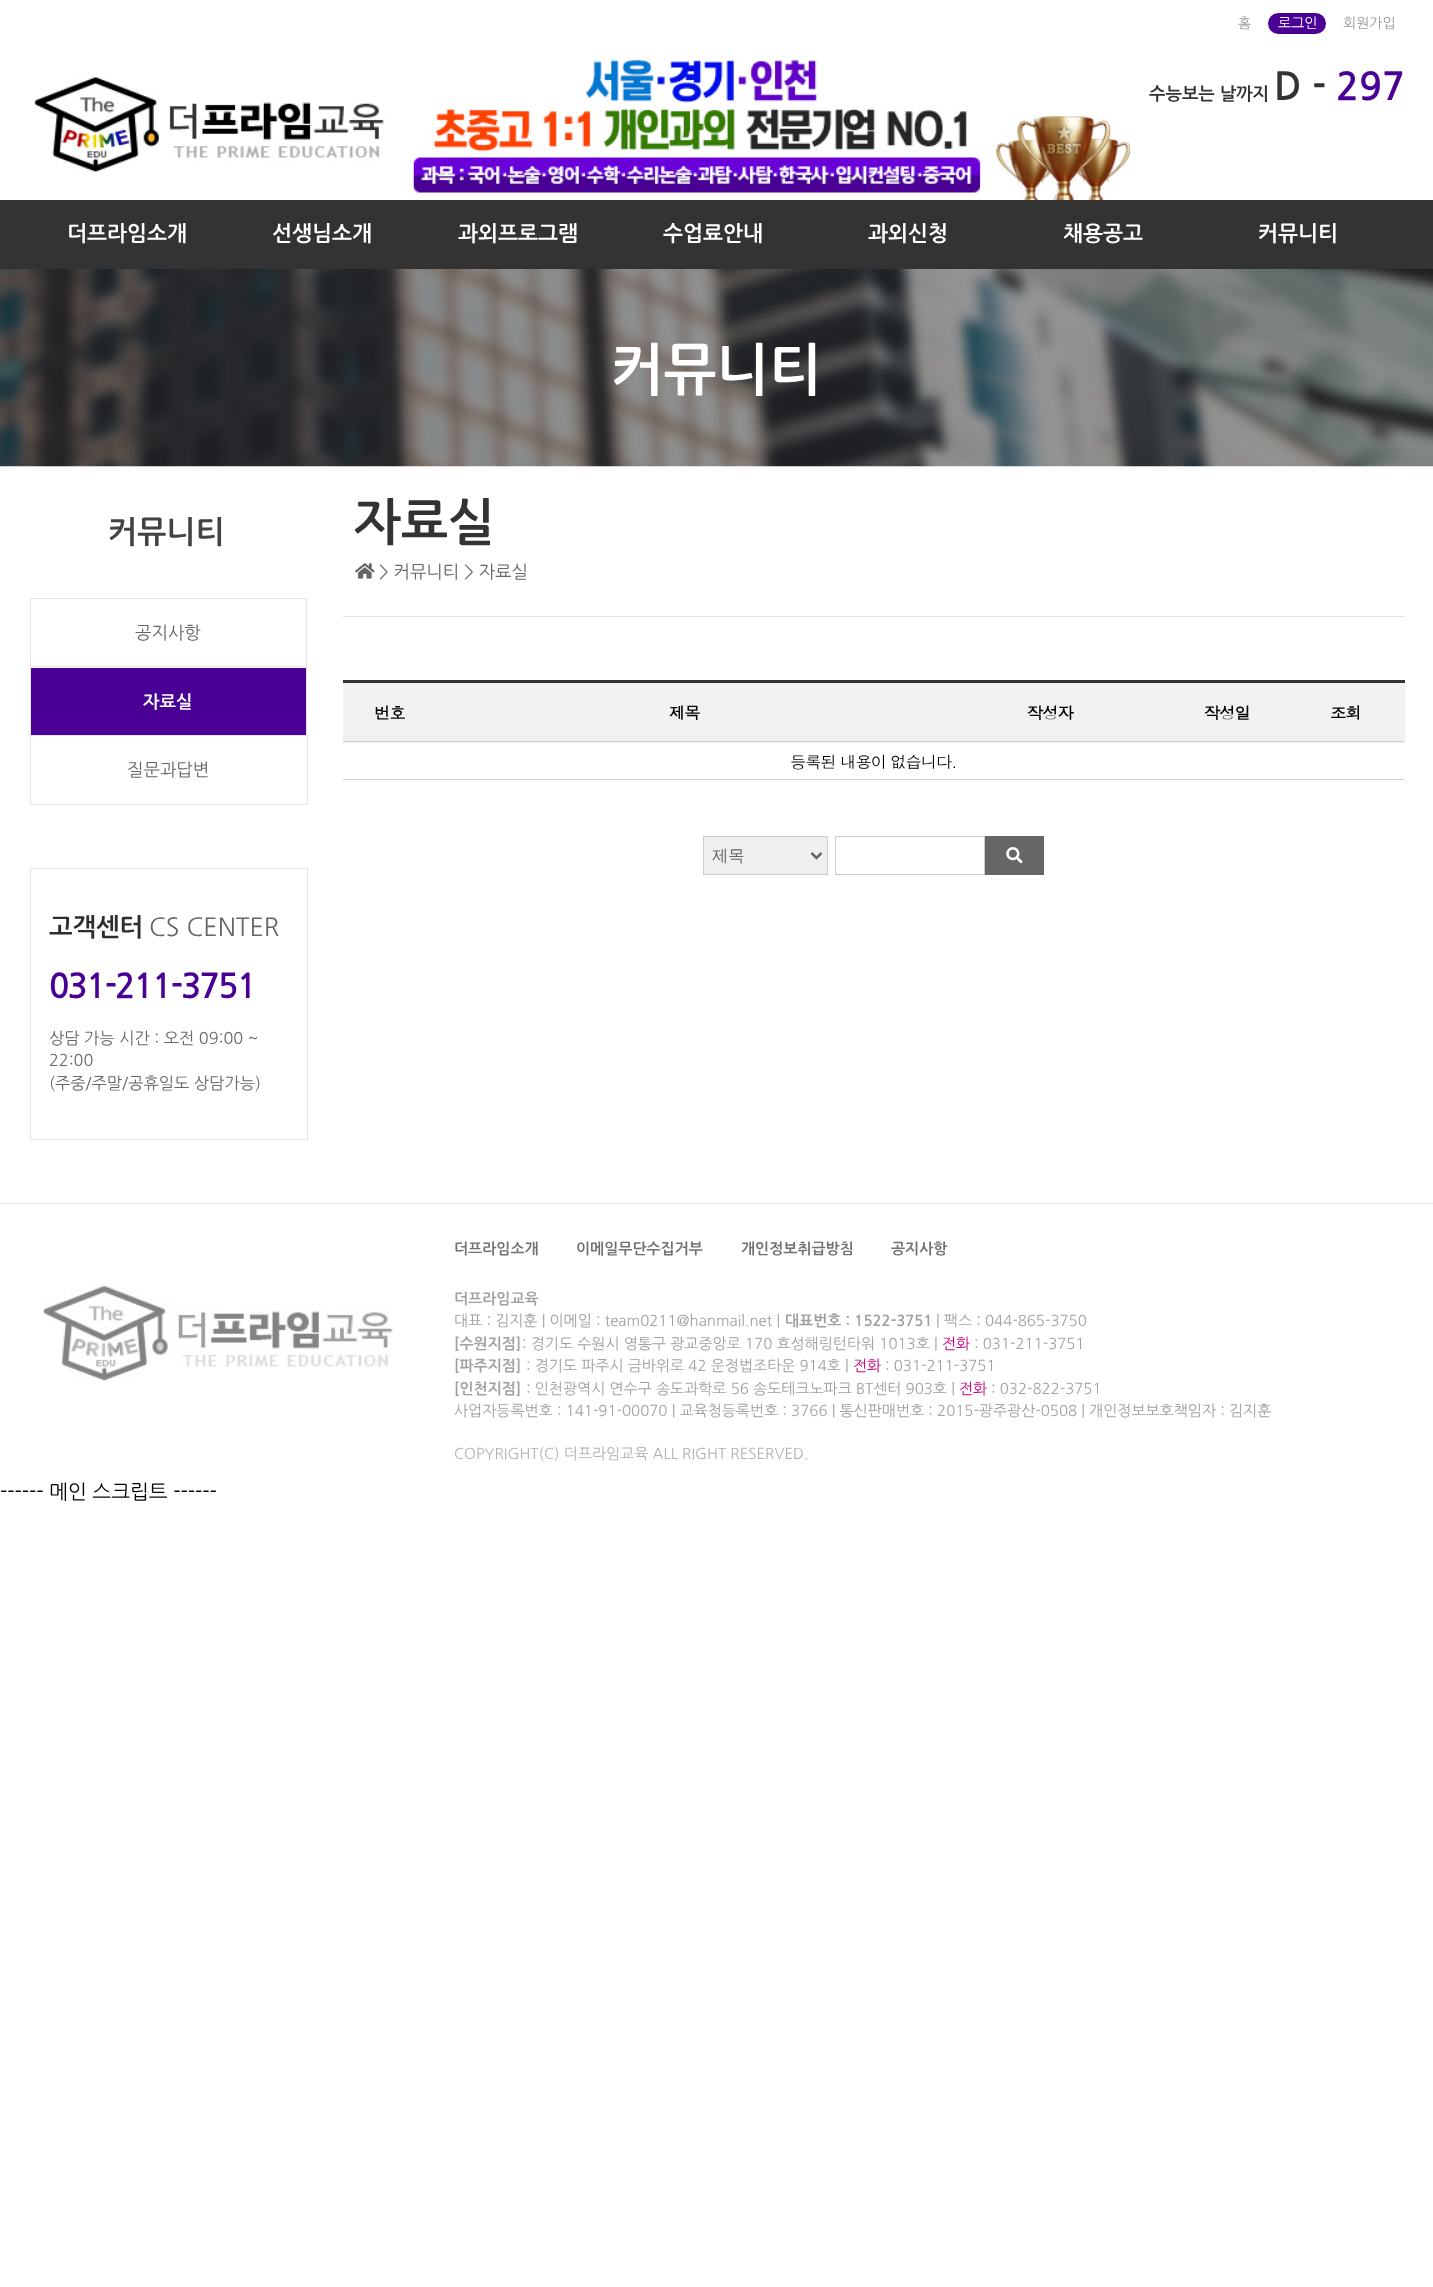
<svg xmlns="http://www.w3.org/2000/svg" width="1433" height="2287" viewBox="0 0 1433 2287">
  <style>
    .t1 { font: 14px NanumGothic; fill: #999; }
    .t2 { font: 14px NanumGothic; fill: #fff; }
    .t3 { font: bold 17.5px NanumGothic; fill: #333; }
    .t4 { font: bold 38px NanumGothic; fill: #333; }
    .t5 { font: bold 38px NanumGothic; fill: #4a0095; }
    .t6 { font: bold 21.25px 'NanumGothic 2'; fill: #fff; }
    .t7 { font: bold 56px NanumGothic; fill: #fff; }
    .t8 { font: bold 31px NanumGothic; fill: #414344; }
    .t9 { font: 17.5px NanumGothic; fill: #666; }
    .t10 { font: bold 17.5px NanumGothic; fill: #fff; }
    .t11 { font: bold 25px NanumGothic; fill: #2d2d2d; }
    .t12 { font: 25px NanumGothic; fill: #666; }
    .t13 { font: bold 33.75px NanumGothic; letter-spacing: -1.9px; fill: #4a0095; }
    .t14 { font: 16.25px NanumGothic; fill: #666; }
    .t15 { font: bold 50px NanumGothic; fill: #333; }
    .t16 { font: bold 16.25px Dotum; letter-spacing: -1px; fill: #000; }
    .t17 { font: 16.25px Dotum; letter-spacing: -1px; fill: #000; }
    .t18 { font: 500 16.25px WenQuanYi Zen Hei; fill: #666; }
    .t19 { font: bold 15px NanumGothic; fill: #717171; }
    .t20 { font: bold 15px NanumGothic; fill: #a0a0a0; }
    .t21 { font: 15px NanumGothic; fill: #a0a0a0; }
    .t22 { font: 15px NanumGothic; fill: #c6007e; }
    .t23 { font: 15px NanumGothic; fill: #b1b1b1; }
    .t24 { font: 20px NanumGothic; fill: #000; }
  </style>
  <rect width="100%" height="100%" fill="#fff"/>
  <text x="1238" y="28" class="t1">홈</text>
  <rect x="1268" y="13" width="58" height="21" rx="10.5" fill="#4a0095"/>
  <text x="1278" y="28" class="t2">로그인</text>
  <text x="1343" y="28" class="t1">회원가입</text>
  <image x="34" y="55" width="1097" height="145" href="images/1.png"/>
  <text x="1149" y="100" class="t3">수능보는 날까지</text>
  <text x="1274" y="100" class="t4">D -</text>
  <text x="1336" y="100" class="t5">297</text>
  <rect x="0" y="200" width="1433" height="69" fill="#333"/>
  <text x="67" y="241" class="t6">더프라임소개</text>
  <text x="272" y="241" class="t6">선생님소개</text>
  <text x="458" y="241" class="t6">과외프로그램</text>
  <text x="663" y="241" class="t6">수업료안내</text>
  <text x="868" y="241" class="t6">과외신청</text>
  <text x="1063" y="241" class="t6">채용공고</text>
  <text x="1258" y="241" class="t6">커뮤니티</text>
  <image x="0" y="269" width="1433" height="198" href="images/2.png"/>
  <text x="611" y="390" class="t7">커뮤니티</text>
  <text x="108" y="543" class="t8">커뮤니티</text>
  <rect x="30" y="598" width="278" height="1" fill="#e4e4e4"/>
  <rect x="306" y="598" width="1" height="68" fill="#e4e4e4"/>
  <rect x="30" y="598" width="1" height="68" fill="#e4e4e4"/>
  <text x="135" y="639" class="t9">공지사항</text>
  <rect x="31" y="668" width="275" height="67" fill="#4a0095"/>
  <rect x="30" y="666" width="278" height="1" fill="#e4e4e4"/>
  <rect x="306" y="666" width="1" height="69" fill="#e4e4e4"/>
  <rect x="30" y="666" width="1" height="69" fill="#e4e4e4"/>
  <text x="143" y="708" class="t10">자료실</text>
  <rect x="30.5" y="735.5" width="277" height="69" fill="none" stroke="#e4e4e4"/>
  <text x="127" y="776" class="t9">질문과답변</text>
  <rect x="30.5" y="868.5" width="277" height="271" fill="none" stroke="#e4e4e4"/>
  <text x="49" y="936" class="t11">고객센터</text>
  <text x="149" y="936" class="t12">CS CENTER</text>
  <text x="49" y="998" class="t13">031-211-3751</text>
  <text x="49" y="1044" class="t14">상담 가능 시간 : 오전 09:00 ~</text>
  <text x="49" y="1066" class="t14">22:00</text>
  <text x="49" y="1089" class="t14">(주중/주말/공휴일도 상담가능)</text>
  <rect x="343" y="616" width="1062" height="1" fill="#e4e4e4"/>
  <text x="354" y="540" class="t15">자료실</text>
  <image x="355" y="563" width="20" height="16" href="images/3.png"/>
  <text x="379" y="578" class="t9">&gt; 커뮤니티 &gt; 자료실</text>
  <rect x="343" y="680" width="1062" height="3" fill="#333"/>
  <rect x="343" y="683" width="1062" height="60" fill="#f1f1f1"/>
  <rect x="343" y="741" width="1062" height="1" fill="#cecece"/>
  <text x="374" y="719" class="t16">번호</text>
  <text x="669" y="719" class="t16">제목</text>
  <text x="1027" y="719" class="t16">작성자</text>
  <text x="1204" y="719" class="t16">작성일</text>
  <text x="1330" y="719" class="t16">조회</text>
  <rect x="343" y="779" width="1062" height="1" fill="#cecece"/>
  <text x="790" y="768" class="t17">등록된 내용이 없습니다.</text>
  <rect x="703.5" y="836.5" width="124" height="38" fill="#efefef" stroke="#ccc"/>
  <path d="M811.5 853L816.5 858L821.5 853" fill="none" stroke="#666" stroke-width="2.5"/>
  <text x="712" y="861" class="t18">제목</text>
  <rect x="835.5" y="836.5" width="149" height="38" fill="none" stroke="#ccc"/>
  <rect x="985" y="836" width="59" height="39" fill="#666"/>
  <image x="1006" y="847" width="17" height="17" href="images/4.png"/>
  <rect x="0" y="1203" width="1433" height="1" fill="#e5e5e5"/>
  <image x="43" y="1284" width="350" height="97" href="images/5.png"/>
  <text x="454" y="1254" class="t19">더프라임소개</text>
  <text x="576" y="1254" class="t19">이메일무단수집거부</text>
  <text x="741" y="1254" class="t19">개인정보취급방침</text>
  <text x="891" y="1254" class="t19">공지사항</text>
  <text x="454" y="1304" class="t20">더프라임교육</text>
  <text x="454" y="1326" class="t21">대표 : 김지훈 | 이메일 : team0211@hanmail.net |</text>
  <text x="785" y="1326" class="t20">대표번호 : 1522-3751</text>
  <text x="936" y="1326" class="t21">| 팩스 : 044-865-3750</text>
  <text x="454" y="1349" class="t20">[수원지점]</text>
  <text x="522" y="1349" class="t21">: 경기도 수원시 영통구 광교중앙로 170 효성해링턴타워 1013호 |</text>
  <text x="942" y="1349" class="t22">전화</text>
  <text x="974" y="1349" class="t21">: 031-211-3751</text>
  <text x="454" y="1371" class="t20">[파주지점]</text>
  <text x="526" y="1371" class="t21">: 경기도 파주시 금바위로 42 운정법조타운 914호 |</text>
  <text x="853" y="1371" class="t22">전화</text>
  <text x="885" y="1371" class="t21">: 031-211-3751</text>
  <text x="454" y="1394" class="t20">[인천지점]</text>
  <text x="526" y="1394" class="t21">: 인천광역시 연수구 송도과학로 56 송도테크노파크 BT센터 903호 |</text>
  <text x="959" y="1394" class="t22">전화</text>
  <text x="991" y="1394" class="t21">: 032-822-3751</text>
  <text x="454" y="1416" class="t21">사업자등록번호 : 141-91-00070 | 교육청등록번호 : 3766 | 통신판매번호 : 2015-광주광산-0508 | 개인정보보호책임자 : 김지훈</text>
  <text x="454" y="1459" class="t23">COPYRIGHT(C) 더프라임교육 ALL RIGHT RESERVED.</text>
  <text x="0" y="1499" class="t24">------ 메인 스크립트 ------</text>
</svg>
